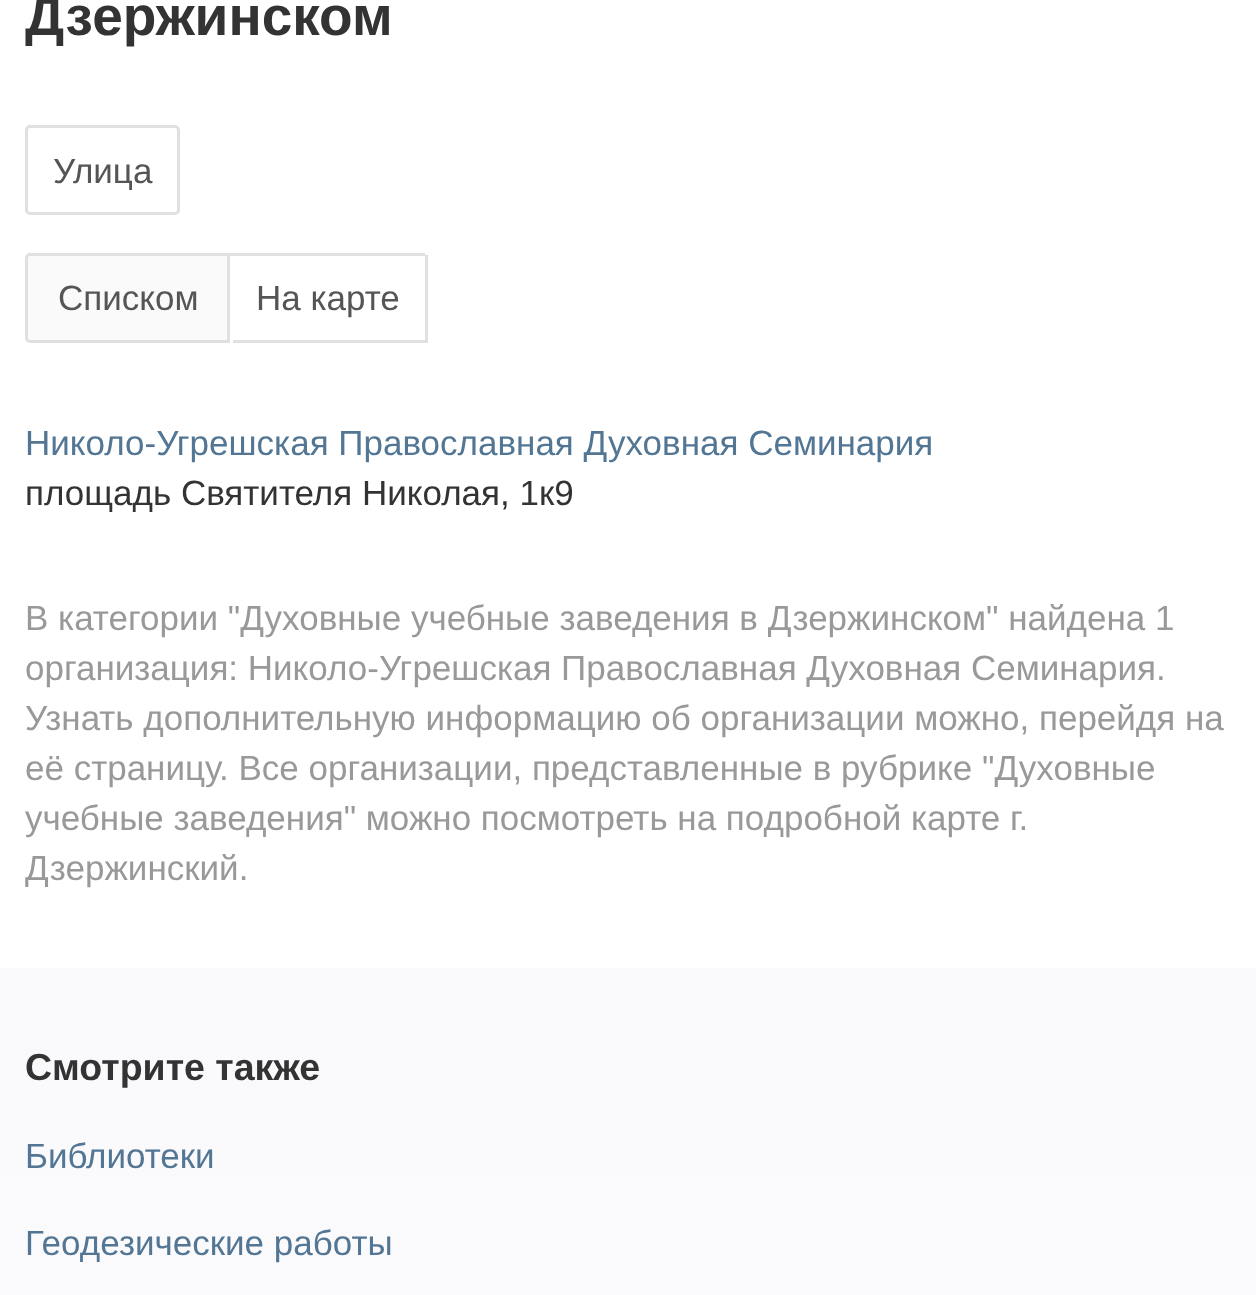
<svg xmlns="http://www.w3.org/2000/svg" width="1256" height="1295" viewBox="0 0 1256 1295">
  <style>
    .t1 { font: bold 55px Liberation Sans; fill: #333; }
    .t2 { font: 35px Liberation Sans; fill: #555; }
    .t3 { font: 35px Liberation Sans; fill: #527693; }
    .t4 { font: 35px Liberation Sans; fill: #333; }
    .t5 { font: 35px Liberation Sans; fill: #999; }
    .t6 { font: bold 37.5px Liberation Sans; fill: #333; }
  </style>
  <defs>
    <linearGradient id="g1" gradientUnits="userSpaceOnUse" x1="629" y1="968" x2="629" y2="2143"><stop offset="0" stop-color="#f9f9fc"/><stop offset="1" stop-color="#fff"/></linearGradient>
  </defs>
  <rect width="100%" height="100%" fill="#fff"/>
  <text x="25" y="35" class="t1">Дзержинском</text>
  <rect x="26.5" y="126.5" width="152" height="87" rx="3.5" fill="none" stroke="#e0e0e0" stroke-width="3"/>
  <text x="53" y="183" class="t2">Улица</text>
  <path d="M30 254.5H228.5V341.5H30C28 341.5 26.5 340 26.5 338V258C26.5 256 28 254.5 30 254.5Z" fill="#fafafa" stroke="#e0e0e0" stroke-width="3"/>
  <text x="58" y="310" class="t2">Списком</text>
  <rect x="230" y="253" width="195" height="3" fill="#e0e0e0"/>
  <rect x="425" y="255" width="3" height="88" fill="#e0e0e0"/>
  <rect x="233" y="340" width="195" height="3" fill="#e0e0e0"/>
  <text x="256" y="310" class="t2">На карте</text>
  <text x="25" y="455" class="t3">Николо-Угрешская Православная Духовная Семинария</text>
  <text x="25" y="505" class="t4">площадь Святителя Николая, 1к9</text>
  <text x="25" y="630" class="t5">В категории "Духовные учебные заведения в Дзержинском" найдена 1</text>
  <text x="25" y="680" class="t5">организация: Николо-Угрешская Православная Духовная Семинария.</text>
  <text x="25" y="730" class="t5">Узнать дополнительную информацию об организации можно, перейдя на</text>
  <text x="25" y="780" class="t5">её страницу. Все организации, представленные в рубрике "Духовные</text>
  <text x="25" y="830" class="t5">учебные заведения" можно посмотреть на подробной карте г.</text>
  <text x="25" y="880" class="t5">Дзержинский.</text>
  <rect x="0" y="968" width="1256" height="327" fill="url(#g1)"/>
  <text x="25" y="1080" class="t6">Смотрите также</text>
  <text x="25" y="1168" class="t3">Библиотеки</text>
  <text x="25" y="1255" class="t3">Геодезические работы</text>
</svg>
